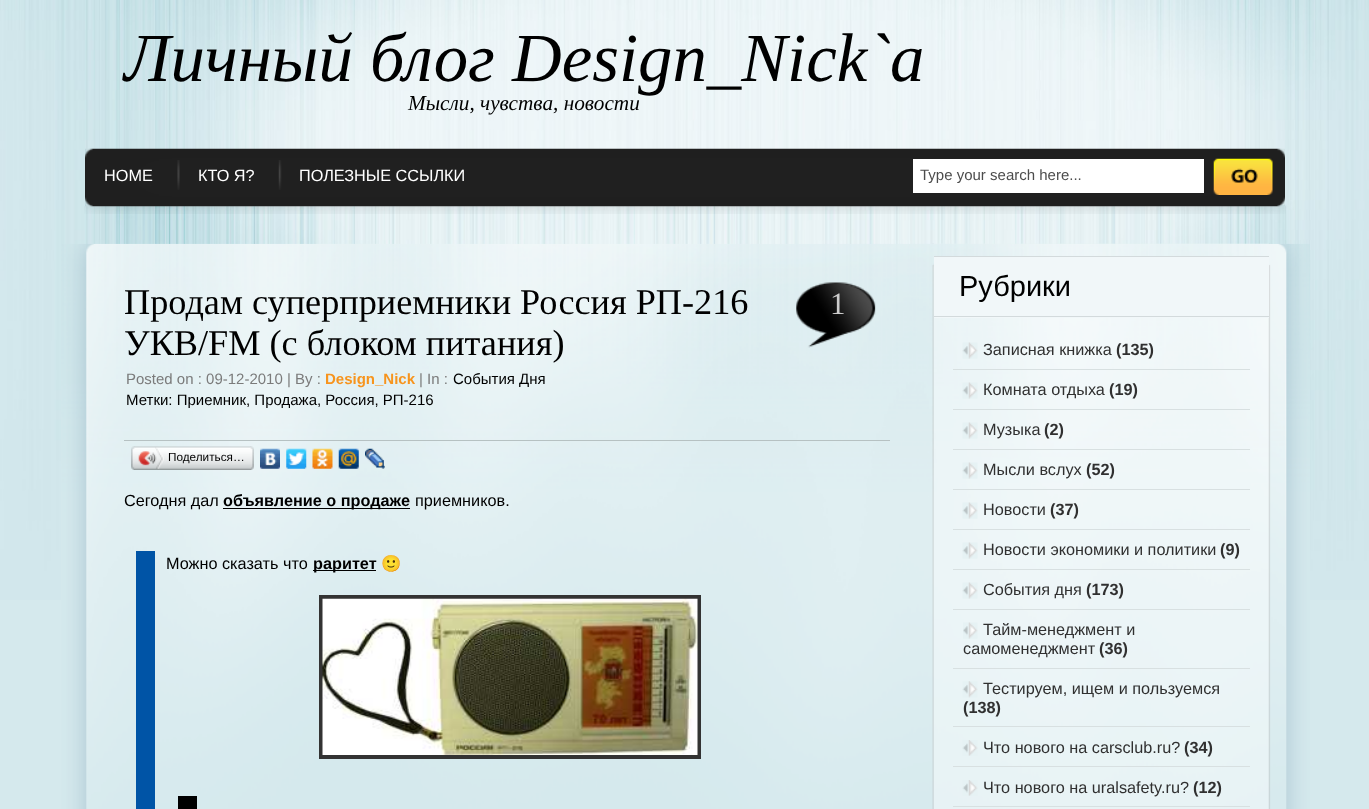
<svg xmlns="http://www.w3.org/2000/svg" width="1369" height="809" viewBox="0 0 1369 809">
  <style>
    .t1 { font: italic 68.75px Liberation Serif; fill: #000; }
    .t2 { font: italic 21.25px Liberation Serif; fill: #000; }
    .t3 { font: 16.25px Liberation Sans; fill: #fff; }
    .t4 { font: 15px Liberation Sans; fill: #4c4c4c; }
    .t5 { font: 36.25px Liberation Serif; fill: #000; }
    .t6 { font: 15px Liberation Sans; fill: #7b7b7b; }
    .t7 { font: bold 15px Liberation Sans; fill: #f7941d; }
    .t8 { font: 15px Liberation Sans; fill: #000; }
    .t9 { font: 31px Liberation Serif; fill: #cdcdcd; }
    .t10 { font: 11.75px Liberation Sans; fill: #000; }
    .t11 { font: 16.25px Liberation Sans; fill: #000; }
    .t12 { font: bold 16.25px Liberation Sans; fill: #000; }
    .t13 { font: 16.25px Noto Color Emoji; fill: #000; }
    .t14 { font: 29px Liberation Sans; fill: #000; }
    .t15 { font: 16.25px Liberation Sans; fill: #303030; }
    .t16 { font: bold 16.25px Liberation Sans; fill: #303030; }
  </style>
  <rect width="100%" height="100%" fill="#d5e9ed"/>
  <image x="0" y="0" width="1369" height="600" href="images/1.png"/>
  <text x="124" y="81" class="t1">Личный блог Design_Nick`а</text>
  <text x="408" y="110" class="t2">Мысли, чувства, новости</text>
  <image x="85" y="148" width="1200" height="59" href="images/2.png"/>
  <text x="104" y="181" class="t3">HOME</text>
  <image x="177" y="160" width="3" height="30" href="images/3.png"/>
  <text x="198" y="181" class="t3">КТО Я?</text>
  <image x="278" y="160" width="4" height="30" href="images/4.png"/>
  <text x="299" y="181" class="t3">ПОЛЕЗНЫЕ ССЫЛКИ</text>
  <rect x="913" y="159" width="291" height="34" fill="#fff"/>
  <text x="920" y="180" class="t4">Type your search here...</text>
  <image x="1213" y="158" width="60" height="37" href="images/5.png"/>
  <image x="84" y="206" width="1202" height="8" href="images/6.png"/>
  <image x="932" y="243" width="338" height="1" href="images/7.png"/>
  <image x="61" y="243" width="1249" height="566" href="images/8.png"/>
  <rect x="124" y="440" width="766" height="1" fill="#b6c1c2"/>
  <text x="124" y="314" class="t5">Продам суперприемники Россия РП-216</text>
  <text x="124" y="355" class="t5">УКВ/FM (с блоком питания)</text>
  <text x="126" y="384" class="t6">Posted on : 09-12-2010 | By :</text>
  <text x="325" y="384" class="t7">Design_Nick</text>
  <text x="419" y="384" class="t6">| In :</text>
  <text x="453" y="384" class="t8">События Дня</text>
  <text x="126" y="405" class="t8">Метки: Приемник, Продажа, Россия, РП-216</text>
  <image x="796" y="282" width="80" height="66" href="images/9.png"/>
  <text x="830" y="314" class="t9">1</text>
  <image x="135" y="446" width="115" height="24" href="images/10.png"/>
  <image x="131" y="446" width="4" height="24" href="images/11.png"/>
  <image x="138" y="447" width="26" height="22" href="images/12.png"/>
  <text x="168" y="461" class="t10">Поделиться…</text>
  <image x="250" y="446" width="4" height="24" href="images/13.png"/>
  <image x="260" y="448" width="20" height="21" href="images/14.png"/>
  <image x="286" y="448" width="21" height="21" href="images/15.png"/>
  <image x="312" y="448" width="21" height="21" href="images/16.png"/>
  <image x="338" y="448" width="21" height="21" href="images/17.png"/>
  <image x="365" y="448" width="20" height="21" href="images/18.png"/>
  <text x="124" y="506" class="t11">Сегодня дал</text>
  <rect x="223" y="508" width="187" height="1" fill="#000"/>
  <text x="223" y="506" class="t12">объявление о продаже</text>
  <text x="415" y="506" class="t11">приемников.</text>
  <rect x="136" y="551" width="19" height="258" fill="#0054a6"/>
  <text x="166" y="569" class="t11">Можно сказать что</text>
  <rect x="313" y="570" width="63" height="1" fill="#000"/>
  <text x="313" y="569" class="t12">раритет</text>
  <text x="381" y="569" class="t13">🙂</text>
  <rect x="321" y="597" width="378" height="160" fill="none" stroke="#333" stroke-width="4"/>
  <image x="322" y="598" width="376" height="157" href="images/19.png"/>
  <rect x="178" y="796" width="19" height="13" fill="#000"/>
  <rect x="934" y="257" width="335" height="61" fill="#f1f7f9"/>
  <rect x="934" y="256" width="335" height="1" fill="#d3dadc"/>
  <rect x="934" y="316" width="335" height="1" fill="#d3dadc"/>
  <text x="959" y="296" class="t14">Рубрики</text>
  <rect x="953" y="369" width="297" height="1" fill="#d8e0e1"/>
  <image x="962" y="342" width="16" height="17" href="images/20.png"/>
  <text x="983" y="355" class="t15">Записная книжка</text>
  <text x="1116" y="355" class="t16">(135)</text>
  <rect x="953" y="409" width="297" height="1" fill="#d8e0e1"/>
  <image x="962" y="382" width="16" height="17" href="images/21.png"/>
  <text x="983" y="395" class="t15">Комната отдыха</text>
  <text x="1109" y="395" class="t16">(19)</text>
  <rect x="953" y="449" width="297" height="1" fill="#d8e0e1"/>
  <image x="962" y="422" width="16" height="17" href="images/22.png"/>
  <text x="983" y="435" class="t15">Музыка</text>
  <text x="1044" y="435" class="t16">(2)</text>
  <rect x="953" y="489" width="297" height="1" fill="#d8e0e1"/>
  <image x="962" y="462" width="16" height="17" href="images/23.png"/>
  <text x="983" y="475" class="t15">Мысли вслух</text>
  <text x="1086" y="475" class="t16">(52)</text>
  <rect x="953" y="529" width="297" height="1" fill="#d8e0e1"/>
  <image x="962" y="502" width="16" height="17" href="images/24.png"/>
  <text x="983" y="515" class="t15">Новости</text>
  <text x="1050" y="515" class="t16">(37)</text>
  <rect x="953" y="569" width="297" height="1" fill="#d8e0e1"/>
  <image x="962" y="542" width="16" height="17" href="images/25.png"/>
  <text x="983" y="555" class="t15">Новости экономики и политики</text>
  <text x="1220" y="555" class="t16">(9)</text>
  <rect x="953" y="609" width="297" height="1" fill="#d8e0e1"/>
  <image x="962" y="582" width="16" height="17" href="images/26.png"/>
  <text x="983" y="595" class="t15">События дня</text>
  <text x="1086" y="595" class="t16">(173)</text>
  <rect x="953" y="668" width="297" height="1" fill="#d8e0e1"/>
  <image x="963" y="622" width="15" height="17" href="images/27.png"/>
  <text x="983" y="635" class="t15">Тайм-менеджмент и</text>
  <text x="963" y="654" class="t15">самоменеджмент</text>
  <text x="1099" y="654" class="t16">(36)</text>
  <rect x="953" y="726" width="297" height="1" fill="#d8e0e1"/>
  <image x="962" y="681" width="16" height="17" href="images/28.png"/>
  <text x="983" y="694" class="t15">Тестируем, ищем и пользуемся</text>
  <text x="963" y="713" class="t16">(138)</text>
  <rect x="953" y="766" width="297" height="1" fill="#d8e0e1"/>
  <image x="962" y="740" width="16" height="16" href="images/29.png"/>
  <text x="983" y="753" class="t15">Что нового на carsclub.ru?</text>
  <text x="1184" y="753" class="t16">(34)</text>
  <rect x="953" y="806" width="297" height="1" fill="#d8e0e1"/>
  <image x="962" y="780" width="16" height="16" href="images/30.png"/>
  <text x="983" y="793" class="t15">Что нового на uralsafety.ru?</text>
  <text x="1193" y="793" class="t16">(12)</text>
</svg>
